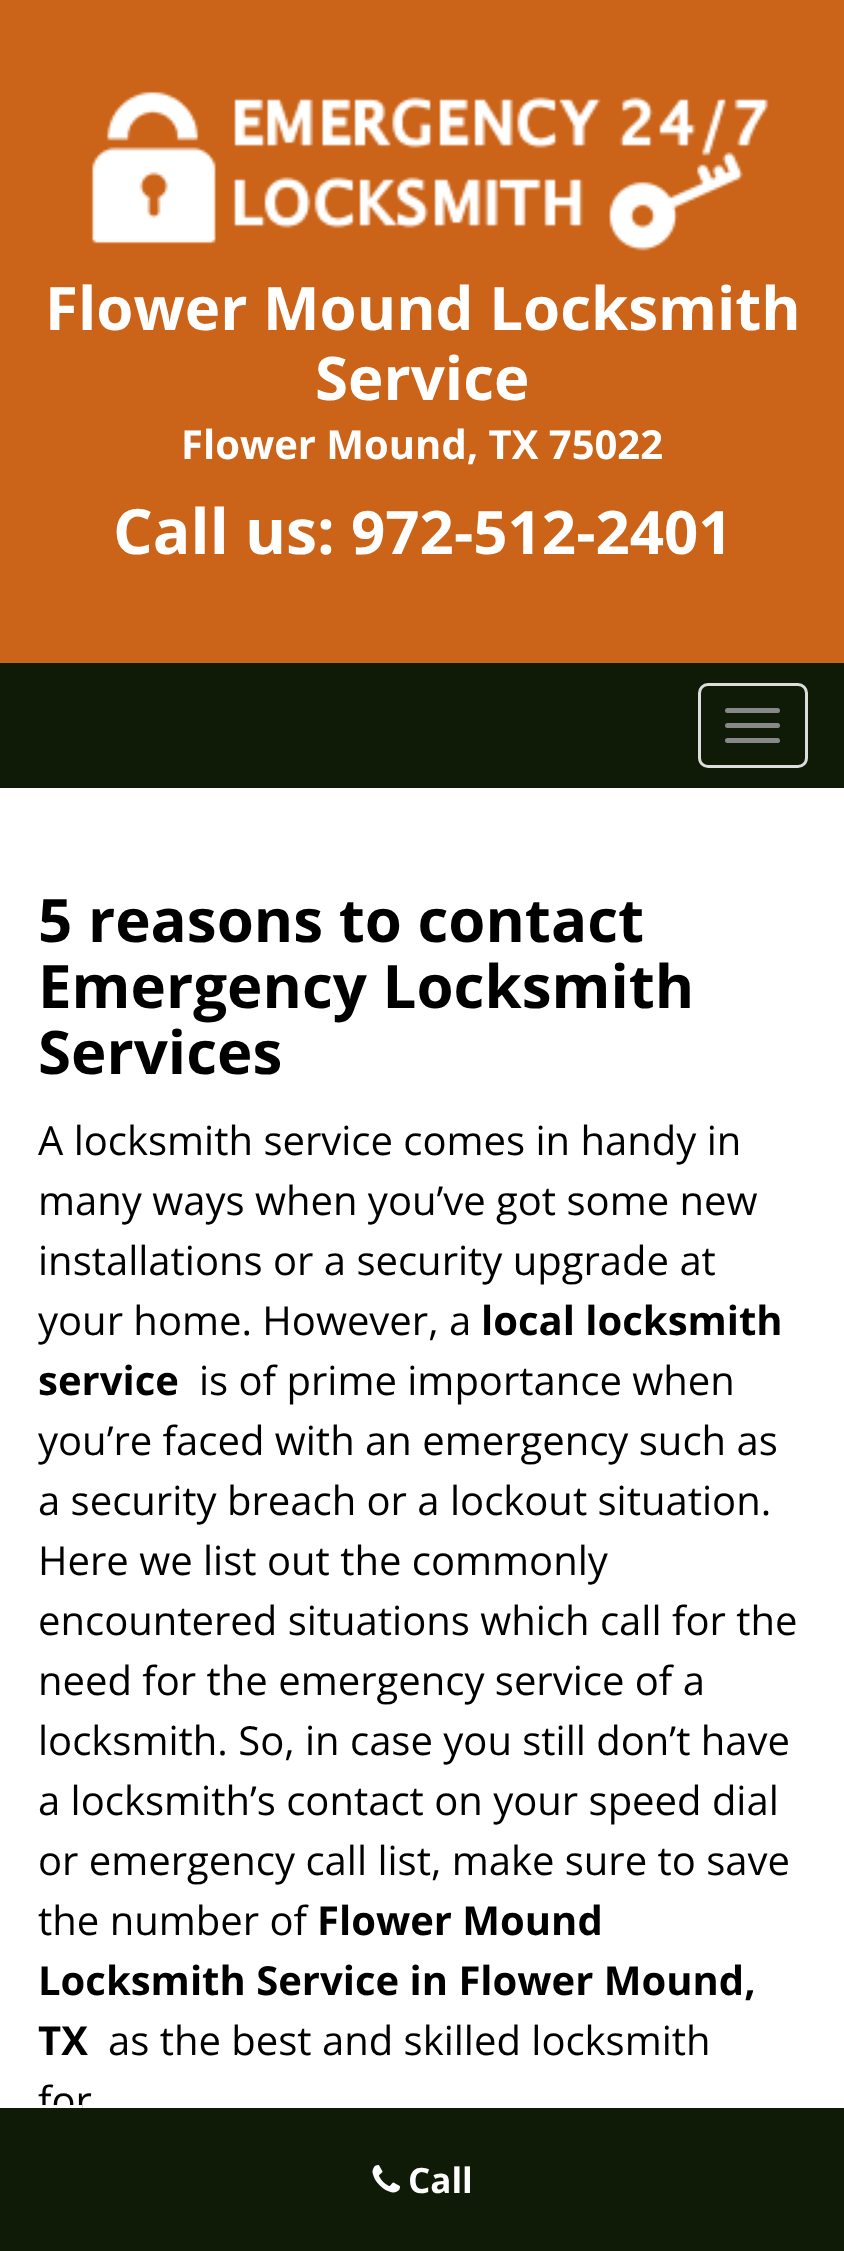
<svg xmlns="http://www.w3.org/2000/svg" width="844" height="2251" viewBox="0 0 844 2251">
  <style>
    .t1 { font: bold 60px Open Sans; fill: #fff; }
    .t2 { font: bold 40px Open Sans; fill: #fff; }
    .t3 { font: bold 62.5px Open Sans; fill: #fff; }
    .t4 { font: bold 60px Open Sans; fill: #000; }
    .t5 { font: 40px Open Sans; fill: #000; }
    .t6 { font: bold 40px Open Sans; fill: #000; }
    .t7 { font: bold 35px Open Sans; fill: #fff; }
  </style>
  <rect width="100%" height="100%" fill="#fff"/>
  <rect x="0" y="0" width="844" height="663" fill="#cb6318"/>
  <image x="91" y="91" width="678" height="160" href="images/1.png"/>
  <text x="45" y="330" class="t1">Flower Mound Locksmith</text>
  <text x="315" y="400" class="t1">Service</text>
  <text x="181" y="459" class="t2">Flower Mound, TX 75022</text>
  <text x="113" y="554" class="t3">Call us:</text>
  <text x="351" y="554" class="t1">972-512-2401</text>
  <rect x="0" y="663" width="844" height="125" fill="#0f1b07"/>
  <rect x="699.5" y="684.5" width="107" height="82" rx="8.5" fill="none" stroke="#ddd" stroke-width="3"/>
  <rect x="725" y="708" width="55" height="5" rx="2.5" fill="#888"/>
  <rect x="725" y="723" width="55" height="5" rx="2.5" fill="#888"/>
  <rect x="725" y="738" width="55" height="5" rx="2.5" fill="#888"/>
  <text x="38" y="942" class="t4">5 reasons to contact</text>
  <text x="38" y="1008" class="t4">Emergency Locksmith</text>
  <text x="38" y="1074" class="t4">Services</text>
  <text x="38" y="1155" class="t5">A locksmith service comes in handy in</text>
  <text x="38" y="1215" class="t5">many ways when you’ve got some new</text>
  <text x="38" y="1275" class="t5">installations or a security upgrade at</text>
  <text x="38" y="1335" class="t5">your home. However, a</text>
  <text x="481" y="1335" class="t6">local locksmith</text>
  <text x="38" y="1395" class="t6">service</text>
  <text x="199" y="1395" class="t5">is of prime importance when</text>
  <text x="38" y="1455" class="t5">you’re faced with an emergency such as</text>
  <text x="38" y="1515" class="t5">a security breach or a lockout situation.</text>
  <text x="38" y="1575" class="t5">Here we list out the commonly</text>
  <text x="38" y="1635" class="t5">encountered situations which call for the</text>
  <text x="38" y="1695" class="t5">need for the emergency service of a</text>
  <text x="38" y="1755" class="t5">locksmith. So, in case you still don’t have</text>
  <text x="38" y="1815" class="t5">a locksmith’s contact on your speed dial</text>
  <text x="38" y="1875" class="t5">or emergency call list, make sure to save</text>
  <text x="38" y="1935" class="t5">the number of</text>
  <text x="317" y="1935" class="t6">Flower Mound</text>
  <text x="38" y="1995" class="t6">Locksmith Service in Flower Mound,</text>
  <text x="38" y="2055" class="t6">TX</text>
  <text x="108" y="2055" class="t5">as the best and skilled locksmith</text>
  <text x="38" y="2115" class="t5">for</text>
  <rect x="0" y="2108" width="844" height="143" fill="#0f1b07"/>
  <rect x="41" y="2105" width="41" height="3" fill="#fff"/>
  <image x="372" y="2165" width="28" height="28" href="images/2.png"/>
  <text x="408" y="2193" class="t7">Call</text>
</svg>
